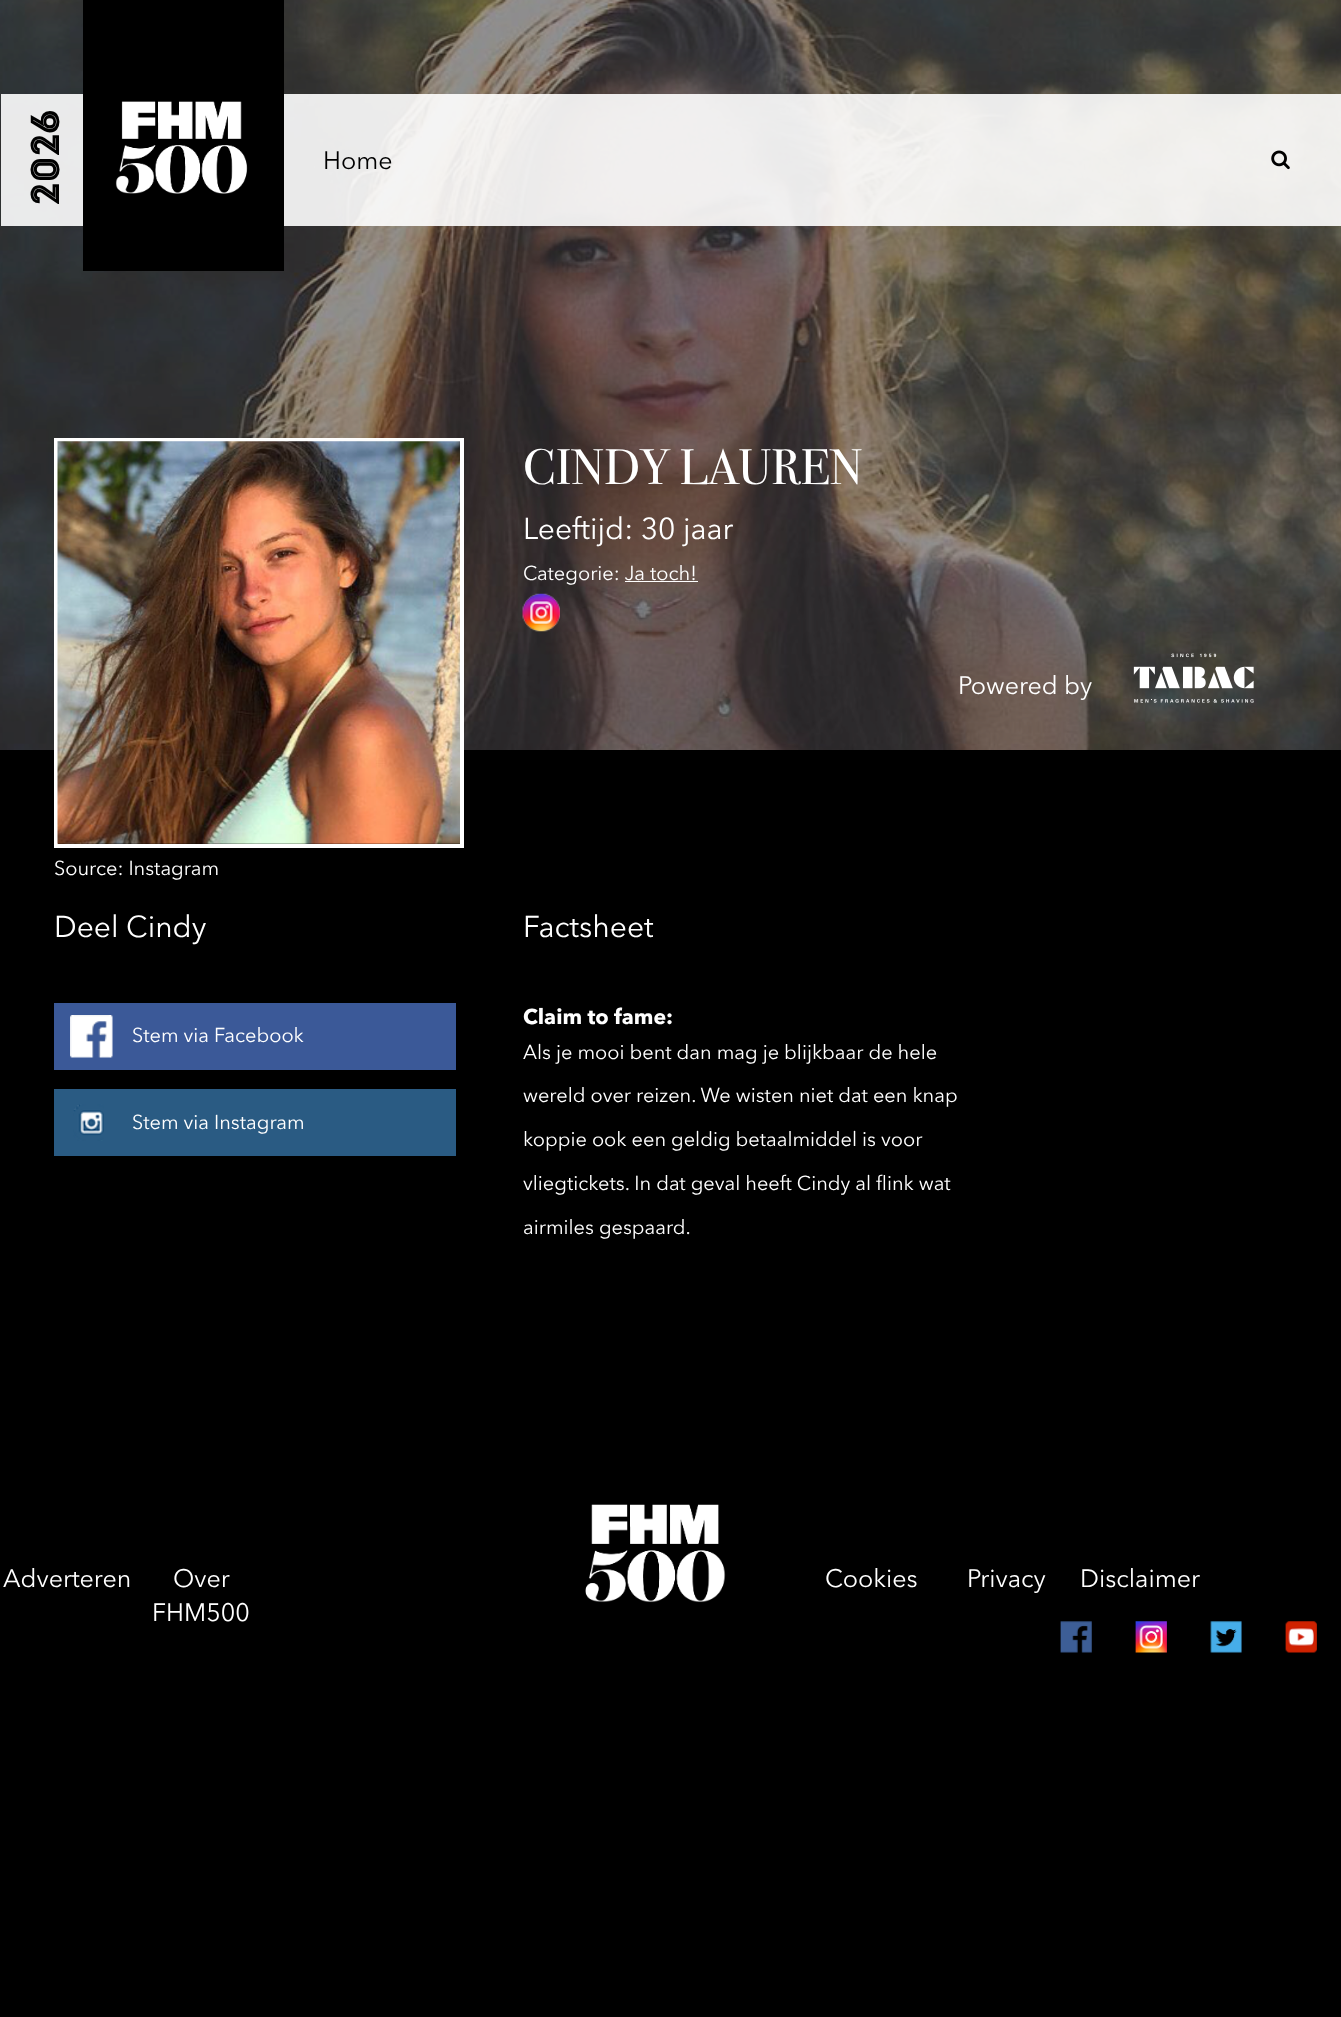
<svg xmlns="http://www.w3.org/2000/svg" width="1341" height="2017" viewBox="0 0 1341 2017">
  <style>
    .t1 { font: 40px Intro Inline; fill: #000; }
    .t2 { font: 25px Avenir Next; fill: #000; }
    .t3 { font: 25px Avenir Next; fill: #fff; }
    .t4 { font: 50px 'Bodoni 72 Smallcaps'; fill: #fff; }
    .t5 { font: 30px Avenir Next; fill: #fff; }
    .t6 { font: 20px Avenir Next; fill: #fff; }
    .t7 { font: bold 21.25px Avenir Next; fill: #fff; }
  </style>
  <rect width="100%" height="100%" fill="#000"/>
  <image x="0" y="0" width="1341" height="750" href="images/3.png"/>
  <rect x="1" y="94" width="1340" height="132" fill="#ffffffe6"/>
  <rect x="83" y="0" width="201" height="271" fill="#000"/>
  <image x="115" y="101" width="133" height="93" href="images/1.png"/>
  <text x="59" y="205" transform="rotate(-90 59 205)" class="t1">2026</text>
  <text x="323" y="169" class="t2">Home</text>
  <image x="1271" y="150" width="19" height="20" href="images/2.png"/>
  <text x="958" y="694" class="t3">Powered by</text>
  <image x="1133" y="653" width="121" height="50" href="images/4.png"/>
  <text x="523" y="484" class="t4">CINDY LAUREN</text>
  <text x="523" y="539" class="t5">Leeftijd: 30 jaar</text>
  <text x="523" y="580" class="t6">Categorie: Ja toch!</text>
  <rect x="625" y="581" width="73" height="1" fill="#fff"/>
  <image x="522" y="593" width="38" height="39" href="images/5.png"/>
  <rect x="56" y="440" width="406" height="406" fill="none" stroke="#fff" stroke-width="4"/>
  <image x="57" y="441" width="403" height="403" href="images/6.png"/>
  <text x="54" y="875" class="t6">Source: Instagram</text>
  <text x="54" y="937" class="t5">Deel Cindy</text>
  <rect x="54" y="1003" width="402" height="67" fill="#3b5998"/>
  <image x="70" y="1015" width="43" height="43" href="images/7.png"/>
  <text x="132" y="1042" class="t6">Stem via Facebook</text>
  <rect x="54" y="1089" width="402" height="67" fill="#2a5b83"/>
  <image x="73" y="1104" width="31" height="37" href="images/8.png"/>
  <text x="132" y="1129" class="t6">Stem via Instagram</text>
  <text x="523" y="937" class="t5">Factsheet</text>
  <text x="523" y="1024" class="t7">Claim to fame:</text>
  <text x="523" y="1059" class="t6">Als je mooi bent dan mag je blijkbaar de hele</text>
  <text x="523" y="1102" class="t6">wereld over reizen. We wisten niet dat een knap</text>
  <text x="523" y="1146" class="t6">koppie ook een geldig betaalmiddel is voor</text>
  <text x="523" y="1190" class="t6">vliegtickets. In dat geval heeft Cindy al flink wat</text>
  <text x="523" y="1234" class="t6">airmiles gespaard.</text>
  <text x="3" y="1587" class="t3">Adverteren</text>
  <text x="173" y="1587" class="t3">Over</text>
  <text x="152" y="1621" class="t3">FHM500</text>
  <image x="585" y="1504" width="141" height="99" href="images/9.png"/>
  <text x="825" y="1587" class="t3">Cookies</text>
  <text x="967" y="1587" class="t3">Privacy</text>
  <text x="1080" y="1587" class="t3">Disclaimer</text>
  <image x="1060" y="1621" width="32" height="32" href="images/10.png"/>
  <image x="1135" y="1621" width="32" height="32" href="images/11.png"/>
  <image x="1210" y="1621" width="32" height="32" href="images/12.png"/>
  <image x="1285" y="1621" width="32" height="32" href="images/13.png"/>
</svg>
